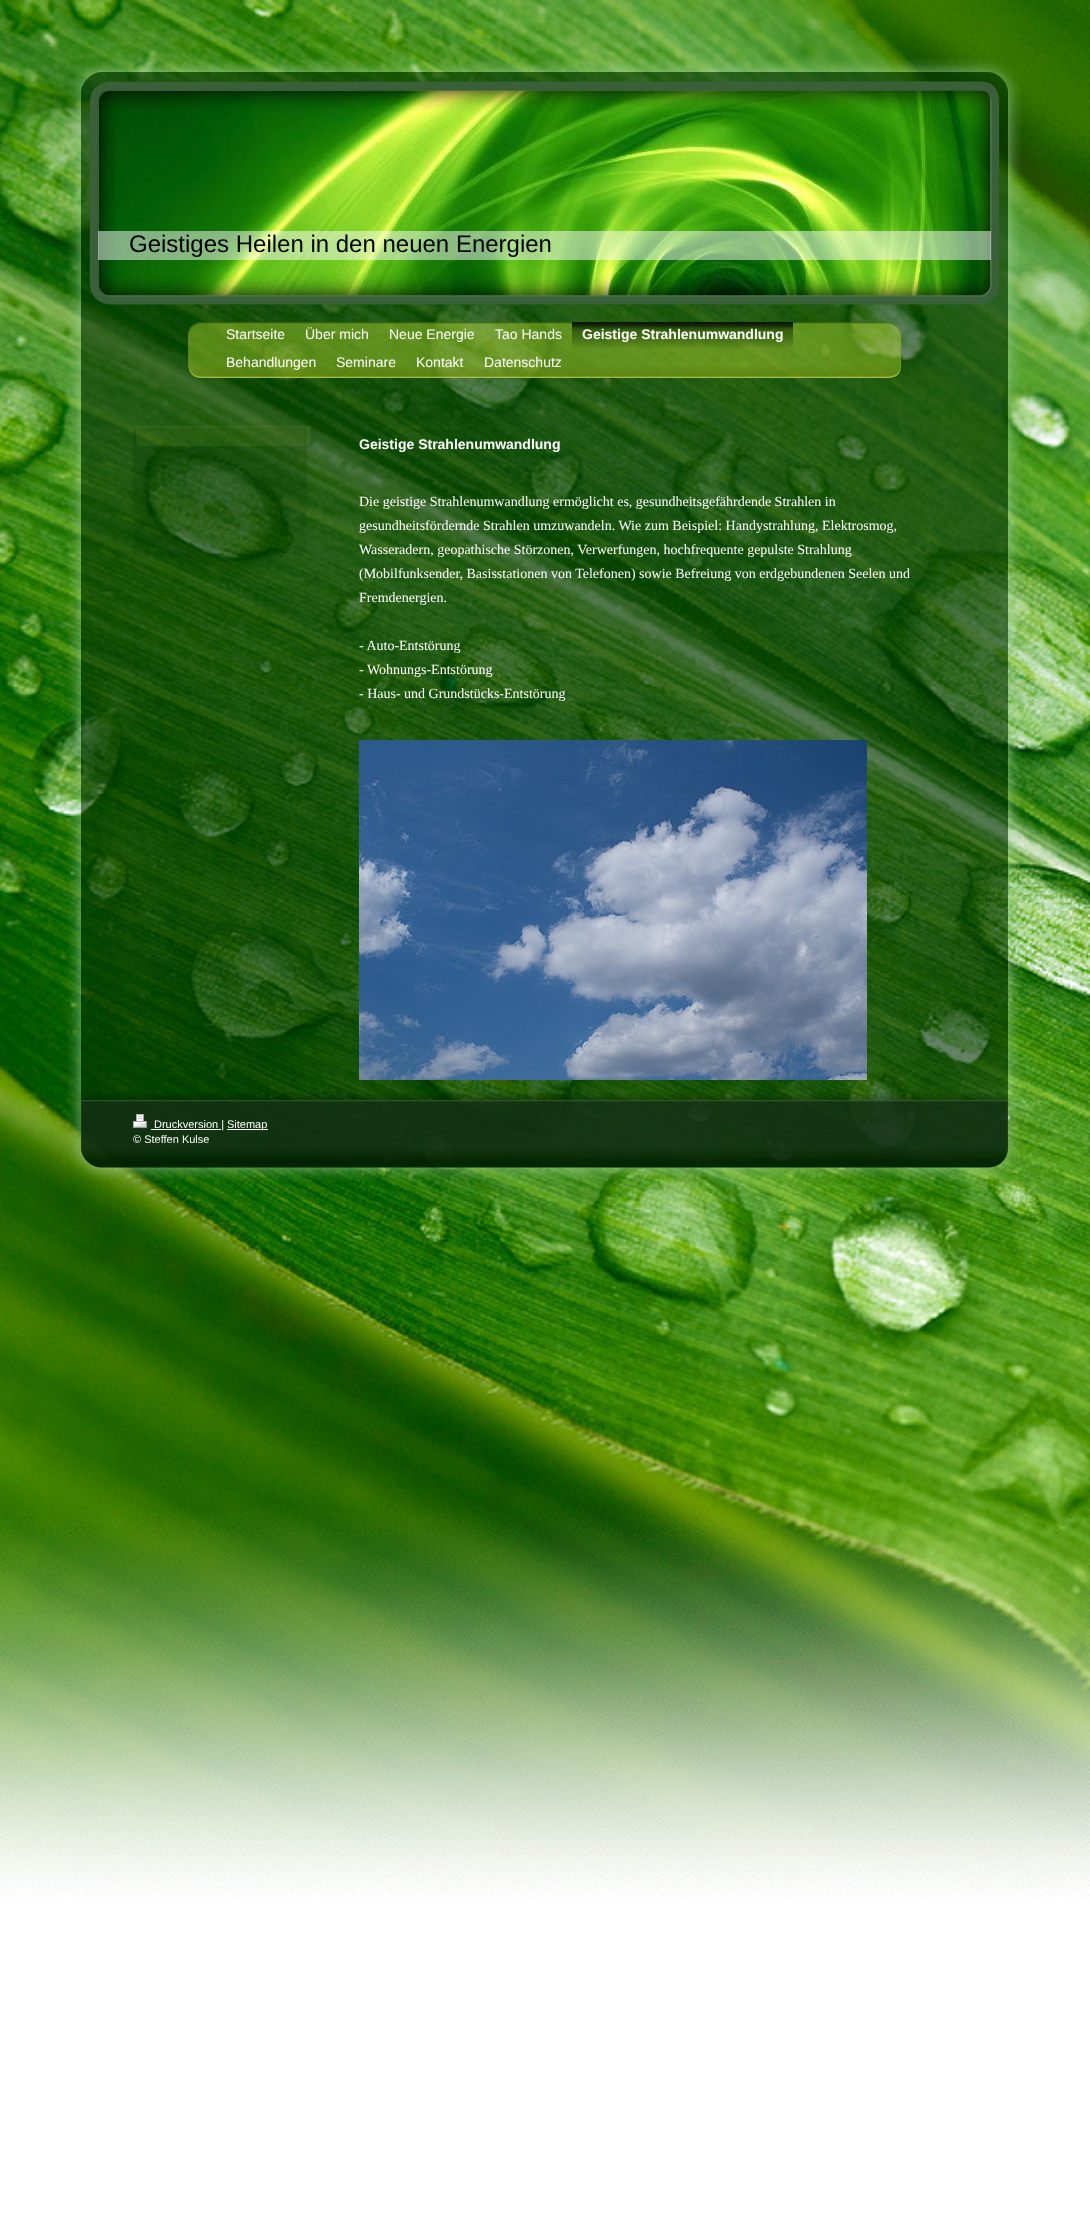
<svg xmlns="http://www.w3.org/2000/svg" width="1090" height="2221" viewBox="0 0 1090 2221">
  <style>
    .t1 { font: 24px Liberation Sans; fill: #000; }
    .t2 { font: 14px Liberation Sans; fill: #fff; }
    .t3 { font: bold 14px Liberation Sans; fill: #fff; }
    .t4 { font: 14px Liberation Serif; fill: #fff; }
    .t5 { font: 11px Liberation Sans; fill: #fff; }
  </style>
  <rect width="100%" height="100%" fill="#fff"/>
  <image x="0" y="0" width="1090" height="1898" href="images/1.png"/>
  <image x="98" y="90" width="893" height="206" href="images/4.png"/>
  <image x="67" y="58" width="955" height="55" href="images/2.png"/>
  <image x="67" y="113" width="49" height="139" href="images/3.png"/>
  <image x="972" y="113" width="50" height="139" href="images/5.png"/>
  <image x="67" y="252" width="953" height="60" href="images/6.png"/>
  <rect x="98" y="231" width="893" height="29" fill="#ffffff80"/>
  <text x="129" y="252" class="t1">Geistiges Heilen in den neuen Energien</text>
  <image x="67" y="312" width="954" height="370" href="images/7.png"/>
  <image x="188" y="322" width="713" height="14" href="images/8.png"/>
  <image x="188" y="336" width="714" height="42" href="images/9.png"/>
  <text x="226" y="339" class="t2">Startseite</text>
  <text x="305" y="339" class="t2">Über mich</text>
  <text x="389" y="339" class="t2">Neue Energie</text>
  <text x="495" y="339" class="t2">Tao Hands</text>
  <image x="572" y="322" width="221" height="26" href="images/10.png"/>
  <text x="582" y="339" class="t3">Geistige Strahlenumwandlung</text>
  <text x="226" y="367" class="t2">Behandlungen</text>
  <text x="336" y="367" class="t2">Seminare</text>
  <text x="416" y="367" class="t2">Kontakt</text>
  <text x="484" y="367" class="t2">Datenschutz</text>
  <image x="67" y="682" width="955" height="403" href="images/11.png"/>
  <image x="133" y="427" width="174" height="130" href="images/13.png"/>
  <image x="136" y="426" width="174" height="20" href="images/12.png"/>
  <text x="359" y="449" class="t3">Geistige Strahlenumwandlung</text>
  <text x="359" y="506" class="t4">Die geistige Strahlenumwandlung ermöglicht es, gesundheitsgefährdende Strahlen in</text>
  <text x="359" y="530" class="t4">gesundheitsfördernde Strahlen umzuwandeln. Wie zum Beispiel: Handystrahlung, Elektrosmog,</text>
  <text x="359" y="554" class="t4">Wasseradern, geopathische Störzonen, Verwerfungen, hochfrequente gepulste Strahlung</text>
  <text x="359" y="578" class="t4">(Mobilfunksender, Basisstationen von Telefonen) sowie Befreiung von erdgebundenen Seelen und</text>
  <text x="359" y="602" class="t4">Fremdenergien.</text>
  <text x="359" y="650" class="t4">- Auto-Entstörung</text>
  <text x="359" y="674" class="t4">- Wohnungs-Entstörung</text>
  <text x="359" y="698" class="t4">- Haus- und Grundstücks-Entstörung</text>
  <image x="359" y="740" width="508" height="340" href="images/14.png"/>
  <image x="69" y="1148" width="951" height="33" href="images/15.png"/>
  <image x="67" y="1085" width="954" height="19" href="images/16.png"/>
  <image x="68" y="1104" width="953" height="44" href="images/17.png"/>
  <image x="133" y="1114" width="14" height="14" href="images/18.png"/>
  <rect x="151" y="1129" width="70" height="1" fill="#fff"/>
  <text x="154" y="1128" class="t5">Druckversion |</text>
  <rect x="227" y="1129" width="41" height="1" fill="#fff"/>
  <text x="227" y="1128" class="t5">Sitemap</text>
  <text x="133" y="1143" class="t5">© Steffen Kulse</text>
</svg>
